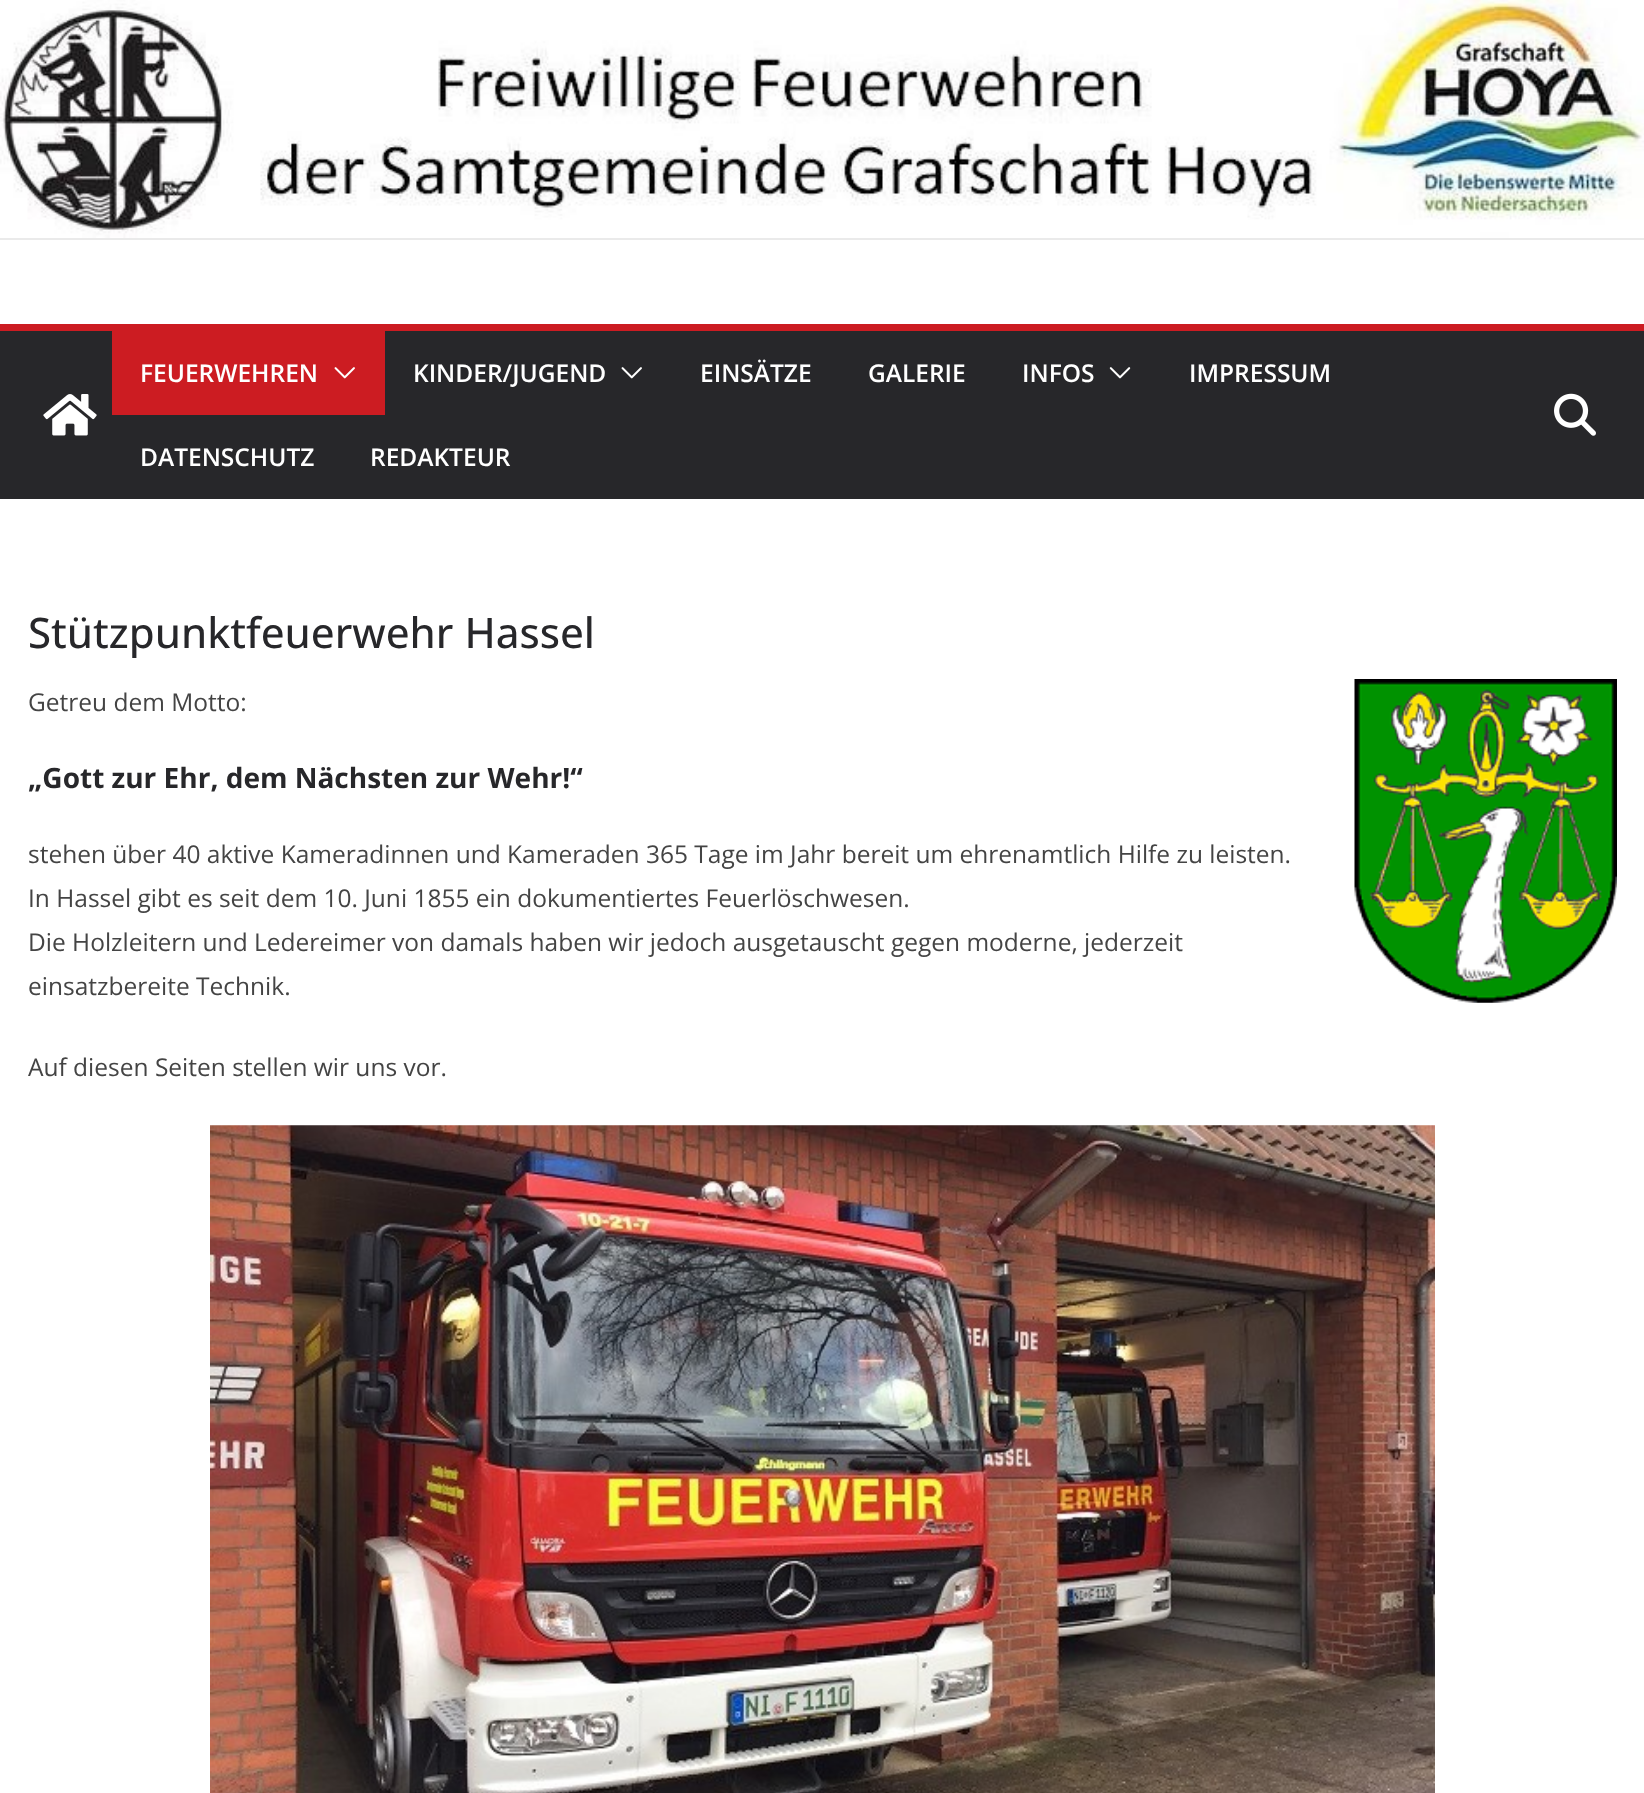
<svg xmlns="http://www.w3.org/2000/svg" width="1644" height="1793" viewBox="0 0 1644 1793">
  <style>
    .t1 { font: 600 24.5px Open Sans; fill: #fff; }
    .t2 { font: 500 42px Open Sans; fill: #27272a; }
    .t3 { font: 24.5px Open Sans; fill: #444; }
    .t4 { font: bold 28px Open Sans; fill: #27272a; }
  </style>
  <rect width="100%" height="100%" fill="#fff"/>
  <rect x="0" y="238" width="1644" height="2" fill="#eaeaea"/>
  <image x="0" y="0" width="1644" height="238" href="images/1.png"/>
  <rect x="0" y="331" width="1644" height="168" fill="#27272a"/>
  <rect x="0" y="324" width="1644" height="7" fill="#cc1c22"/>
  <image x="43" y="394" width="54" height="42" href="images/2.png"/>
  <rect x="112" y="331" width="273" height="84" fill="#cc1c22"/>
  <text x="140" y="382" class="t1">FEUERWEHREN</text>
  <image x="334" y="367" width="21" height="12" href="images/3.png"/>
  <text x="413" y="382" class="t1">KINDER/JUGEND</text>
  <image x="621" y="367" width="21" height="12" href="images/4.png"/>
  <text x="700" y="382" class="t1">EINSÄTZE</text>
  <text x="868" y="382" class="t1">GALERIE</text>
  <text x="1022" y="382" class="t1">INFOS</text>
  <image x="1109" y="367" width="22" height="12" href="images/5.png"/>
  <text x="1189" y="382" class="t1">IMPRESSUM</text>
  <text x="140" y="466" class="t1">DATENSCHUTZ</text>
  <text x="370" y="466" class="t1">REDAKTEUR</text>
  <image x="1554" y="393" width="42" height="43" href="images/6.png"/>
  <text x="28" y="648" class="t2">Stützpunktfeuerwehr Hassel</text>
  <text x="28" y="711" class="t3">Getreu dem Motto:</text>
  <image x="1354" y="679" width="263" height="324" href="images/7.png"/>
  <text x="28" y="788" class="t4">„Gott zur Ehr, dem Nächsten zur Wehr!“</text>
  <text x="28" y="863" class="t3">stehen über 40 aktive Kameradinnen und Kameraden 365 Tage im Jahr bereit um ehrenamtlich Hilfe zu leisten.</text>
  <text x="28" y="907" class="t3">In Hassel gibt es seit dem 10. Juni 1855 ein dokumentiertes Feuerlöschwesen.</text>
  <text x="28" y="951" class="t3">Die Holzleitern und Ledereimer von damals haben wir jedoch ausgetauscht gegen moderne, jederzeit</text>
  <text x="28" y="995" class="t3">einsatzbereite Technik.</text>
  <text x="28" y="1076" class="t3">Auf diesen Seiten stellen wir uns vor.</text>
  <image x="210" y="1125" width="1225" height="668" href="images/8.png"/>
</svg>
